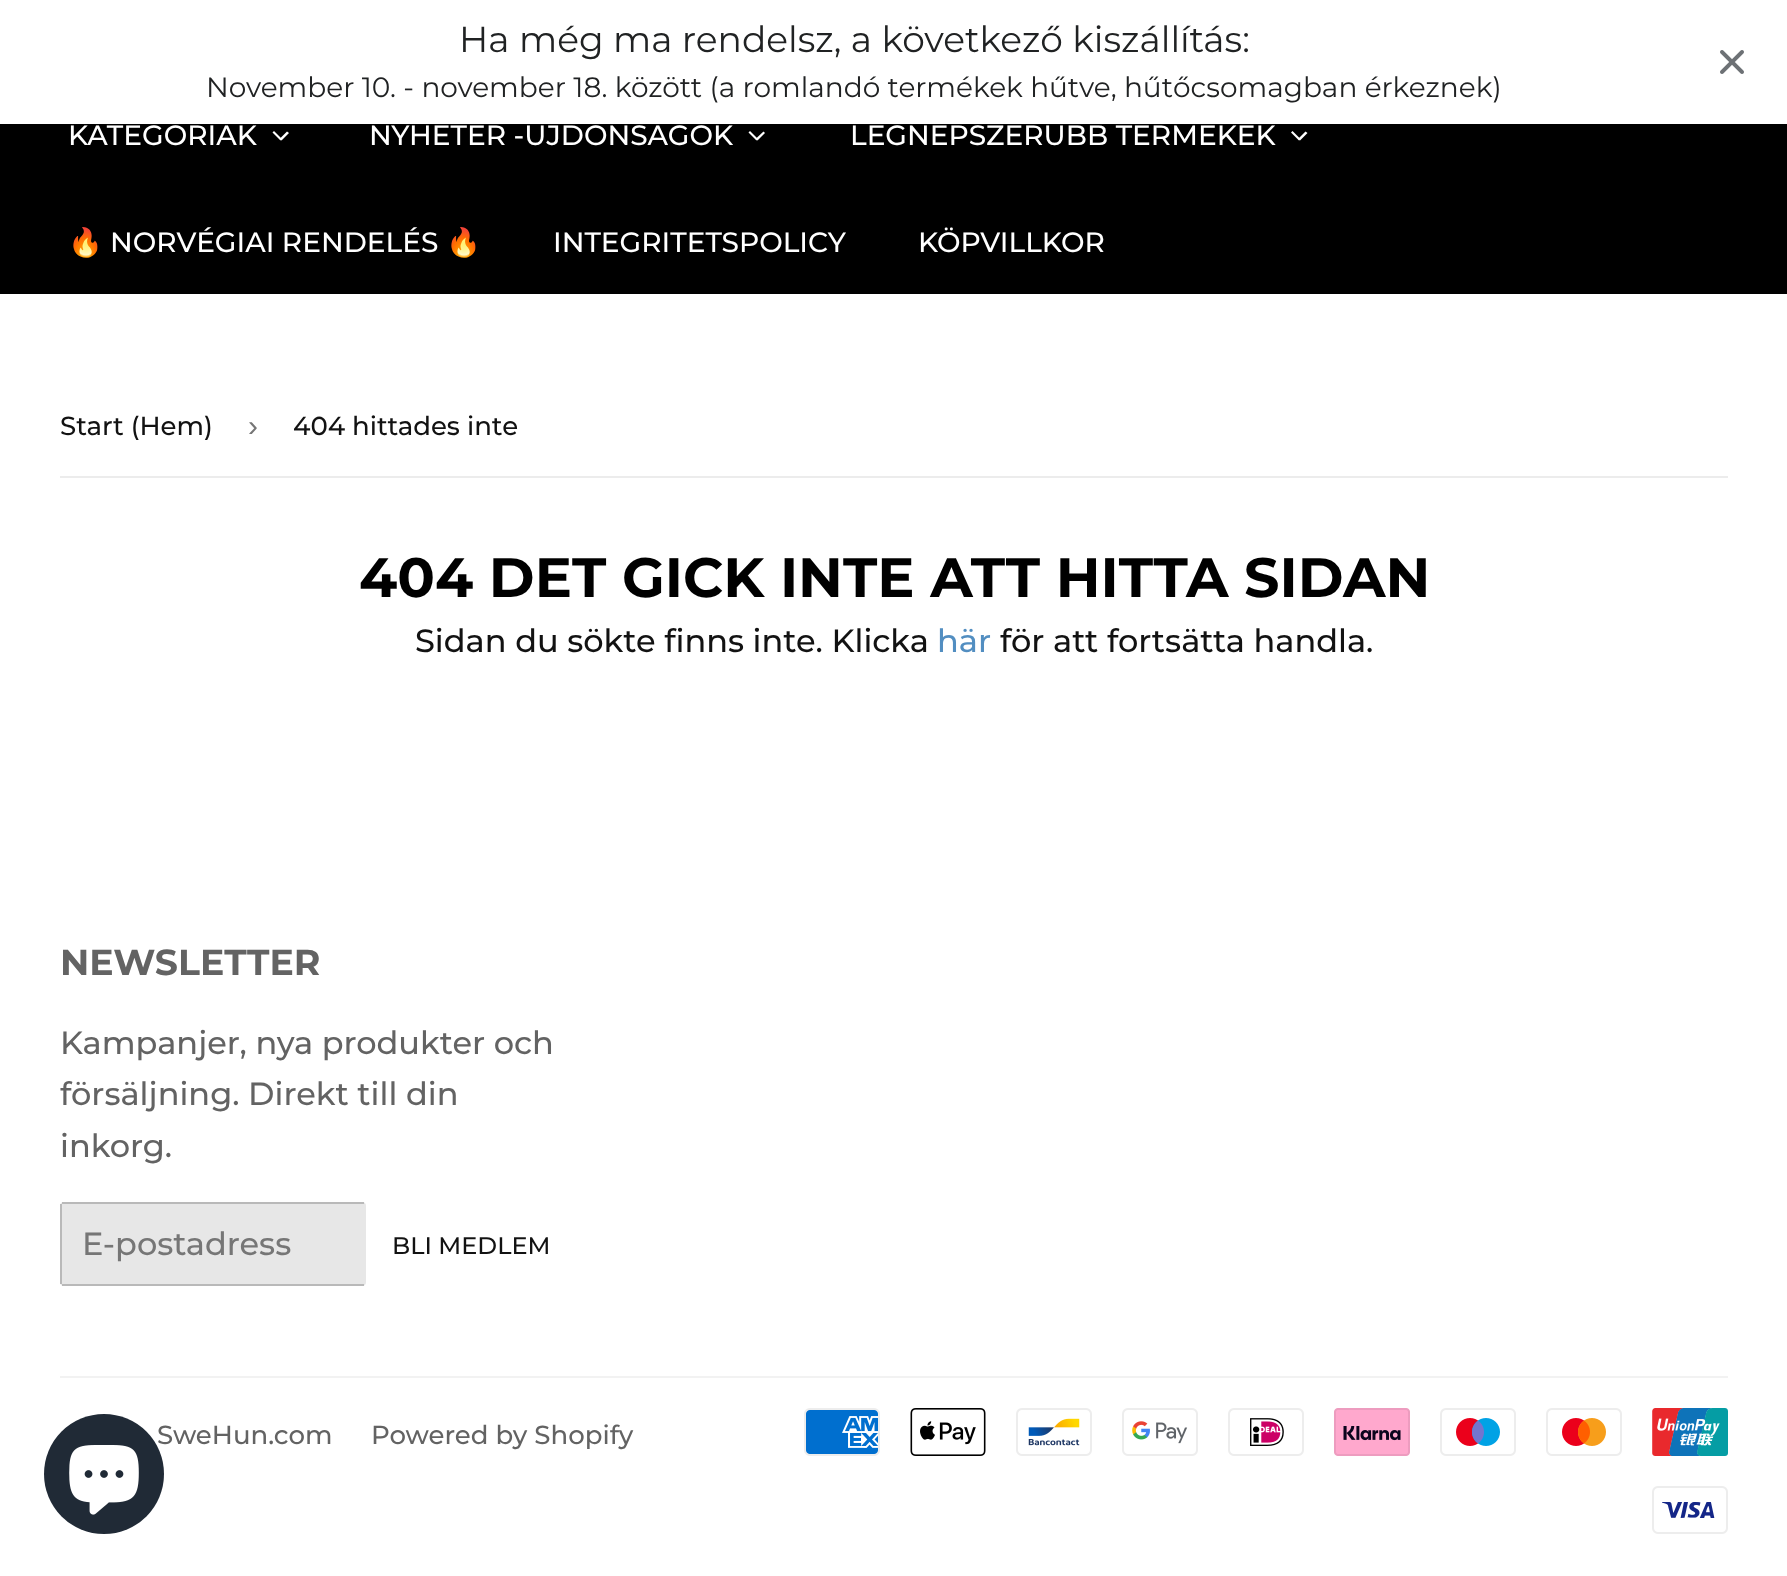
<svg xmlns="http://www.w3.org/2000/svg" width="1787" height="1576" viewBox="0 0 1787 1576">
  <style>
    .t1 { font: 36px Montserrat; fill: #202223; }
    .t2 { font: 28px Montserrat; fill: #202223; }
    .t3 { font: 500 28px Montserrat; fill: #fff; }
    .t4 { font: 28px Noto Color Emoji; fill: #fff; }
    .t5 { font: 500 26px Montserrat; fill: #121212; }
    .t6 { font: 30px Liberation Sans; fill: #767676; }
    .t7 { font: bold 55.5px Montserrat; fill: #000; }
    .t8 { font: 500 32px Montserrat; fill: #121212; }
    .t9 { font: 500 32px Montserrat; fill: #528ec1; }
    .t10 { font: bold 36.25px Montserrat; fill: #636363; }
    .t11 { font: 500 32px Montserrat; fill: #636363; }
    .t12 { font: 500 32px Montserrat; fill: #767676; }
    .t13 { font: 500 24px Montserrat; fill: #121212; }
    .t14 { font: 500 26px Montserrat; fill: #636363; }
  </style>
  <rect width="100%" height="100%" fill="#fff"/>
  <text x="459" y="52" class="t1">Ha még ma rendelsz, a következő kiszállítás:</text>
  <text x="206" y="97" class="t2">November 10. - november 18. között (a romlandó termékek hűtve, hűtőcsomagban érkeznek)</text>
  <image x="1720" y="50" width="24" height="24" href="images/1.png"/>
  <rect x="0" y="124" width="1787" height="170" fill="#000"/>
  <text x="68" y="145" class="t3">KATEGÓRIÁK</text>
  <path d="M287 131.5L289 133L281.5 140.5L279.5 139Z" fill="#fff"/>
  <path d="M274 131L282 139L280.5 140.5L272.5 132.5Z" fill="#fff"/>
  <text x="369" y="145" class="t3">NYHETER -ÚJDONSÁGOK</text>
  <path d="M763.5 131.5L765 133L757.5 140.5L755.5 139Z" fill="#fff"/>
  <path d="M750 131L758 139L756.5 140.5L748.5 132.5Z" fill="#fff"/>
  <text x="850" y="145" class="t3">LEGNÉPSZERŰBB TERMÉKEK</text>
  <path d="M1305.5 131.5L1307.5 133L1300 140.5L1298 139Z" fill="#fff"/>
  <path d="M1292.5 131L1300.5 139L1299 140.5L1291 132.5Z" fill="#fff"/>
  <text x="68" y="252" class="t4">🔥</text>
  <text x="110" y="252" class="t3">NORVÉGIAI RENDELÉS</text>
  <text x="446" y="252" class="t4">🔥</text>
  <text x="553" y="252" class="t3">INTEGRITETSPOLICY</text>
  <text x="918" y="252" class="t3">KÖPVILLKOR</text>
  <rect x="60" y="476" width="1668" height="2" fill="#ececec"/>
  <text x="60" y="435" class="t5">Start (Hem)</text>
  <text x="248" y="436" class="t6">›</text>
  <text x="293" y="435" class="t5">404 hittades inte</text>
  <text x="359" y="597" class="t7">404 DET GICK INTE ATT HITTA SIDAN</text>
  <text x="415" y="652" class="t8">Sidan du sökte finns inte. Klicka</text>
  <text x="937" y="652" class="t9">här</text>
  <text x="1000" y="652" class="t8">för att fortsätta handla.</text>
  <text x="60" y="975" class="t10">NEWSLETTER</text>
  <text x="60" y="1054" class="t11">Kampanjer, nya produkter och</text>
  <text x="60" y="1105" class="t11">försäljning. Direkt till din</text>
  <text x="60" y="1157" class="t11">inkorg.</text>
  <rect x="60" y="1202" width="306" height="84" rx="4" fill="#e7e7e7"/>
  <rect x="62" y="1202" width="302" height="2" fill="#b9b9b9"/>
  <rect x="62" y="1284" width="302" height="2" fill="#b9b9b9"/>
  <rect x="60" y="1204" width="2" height="80" fill="#b9b9b9"/>
  <text x="82" y="1255" class="t12">E-postadress</text>
  <text x="392" y="1254" class="t13">BLI MEDLEM</text>
  <rect x="60" y="1376" width="1668" height="2" fill="#f2f2f2"/>
  <text x="157" y="1444" class="t14">SweHun.com</text>
  <text x="371" y="1444" class="t14">Powered by Shopify</text>
  <image x="804" y="1408" width="76" height="48" href="images/2.png"/>
  <image x="910" y="1408" width="76" height="48" href="images/3.png"/>
  <image x="1016" y="1408" width="76" height="48" href="images/4.png"/>
  <image x="1122" y="1408" width="76" height="48" href="images/5.png"/>
  <image x="1228" y="1408" width="76" height="48" href="images/6.png"/>
  <image x="1334" y="1408" width="76" height="48" href="images/7.png"/>
  <image x="1440" y="1408" width="76" height="48" href="images/8.png"/>
  <image x="1546" y="1408" width="76" height="48" href="images/9.png"/>
  <image x="1652" y="1408" width="76" height="48" href="images/10.png"/>
  <image x="1652" y="1486" width="76" height="48" href="images/11.png"/>
  <circle cx="104" cy="1474" r="60" fill="#202a36"/>
  <image x="69" y="1445" width="70" height="70" href="images/12.png"/>
</svg>
